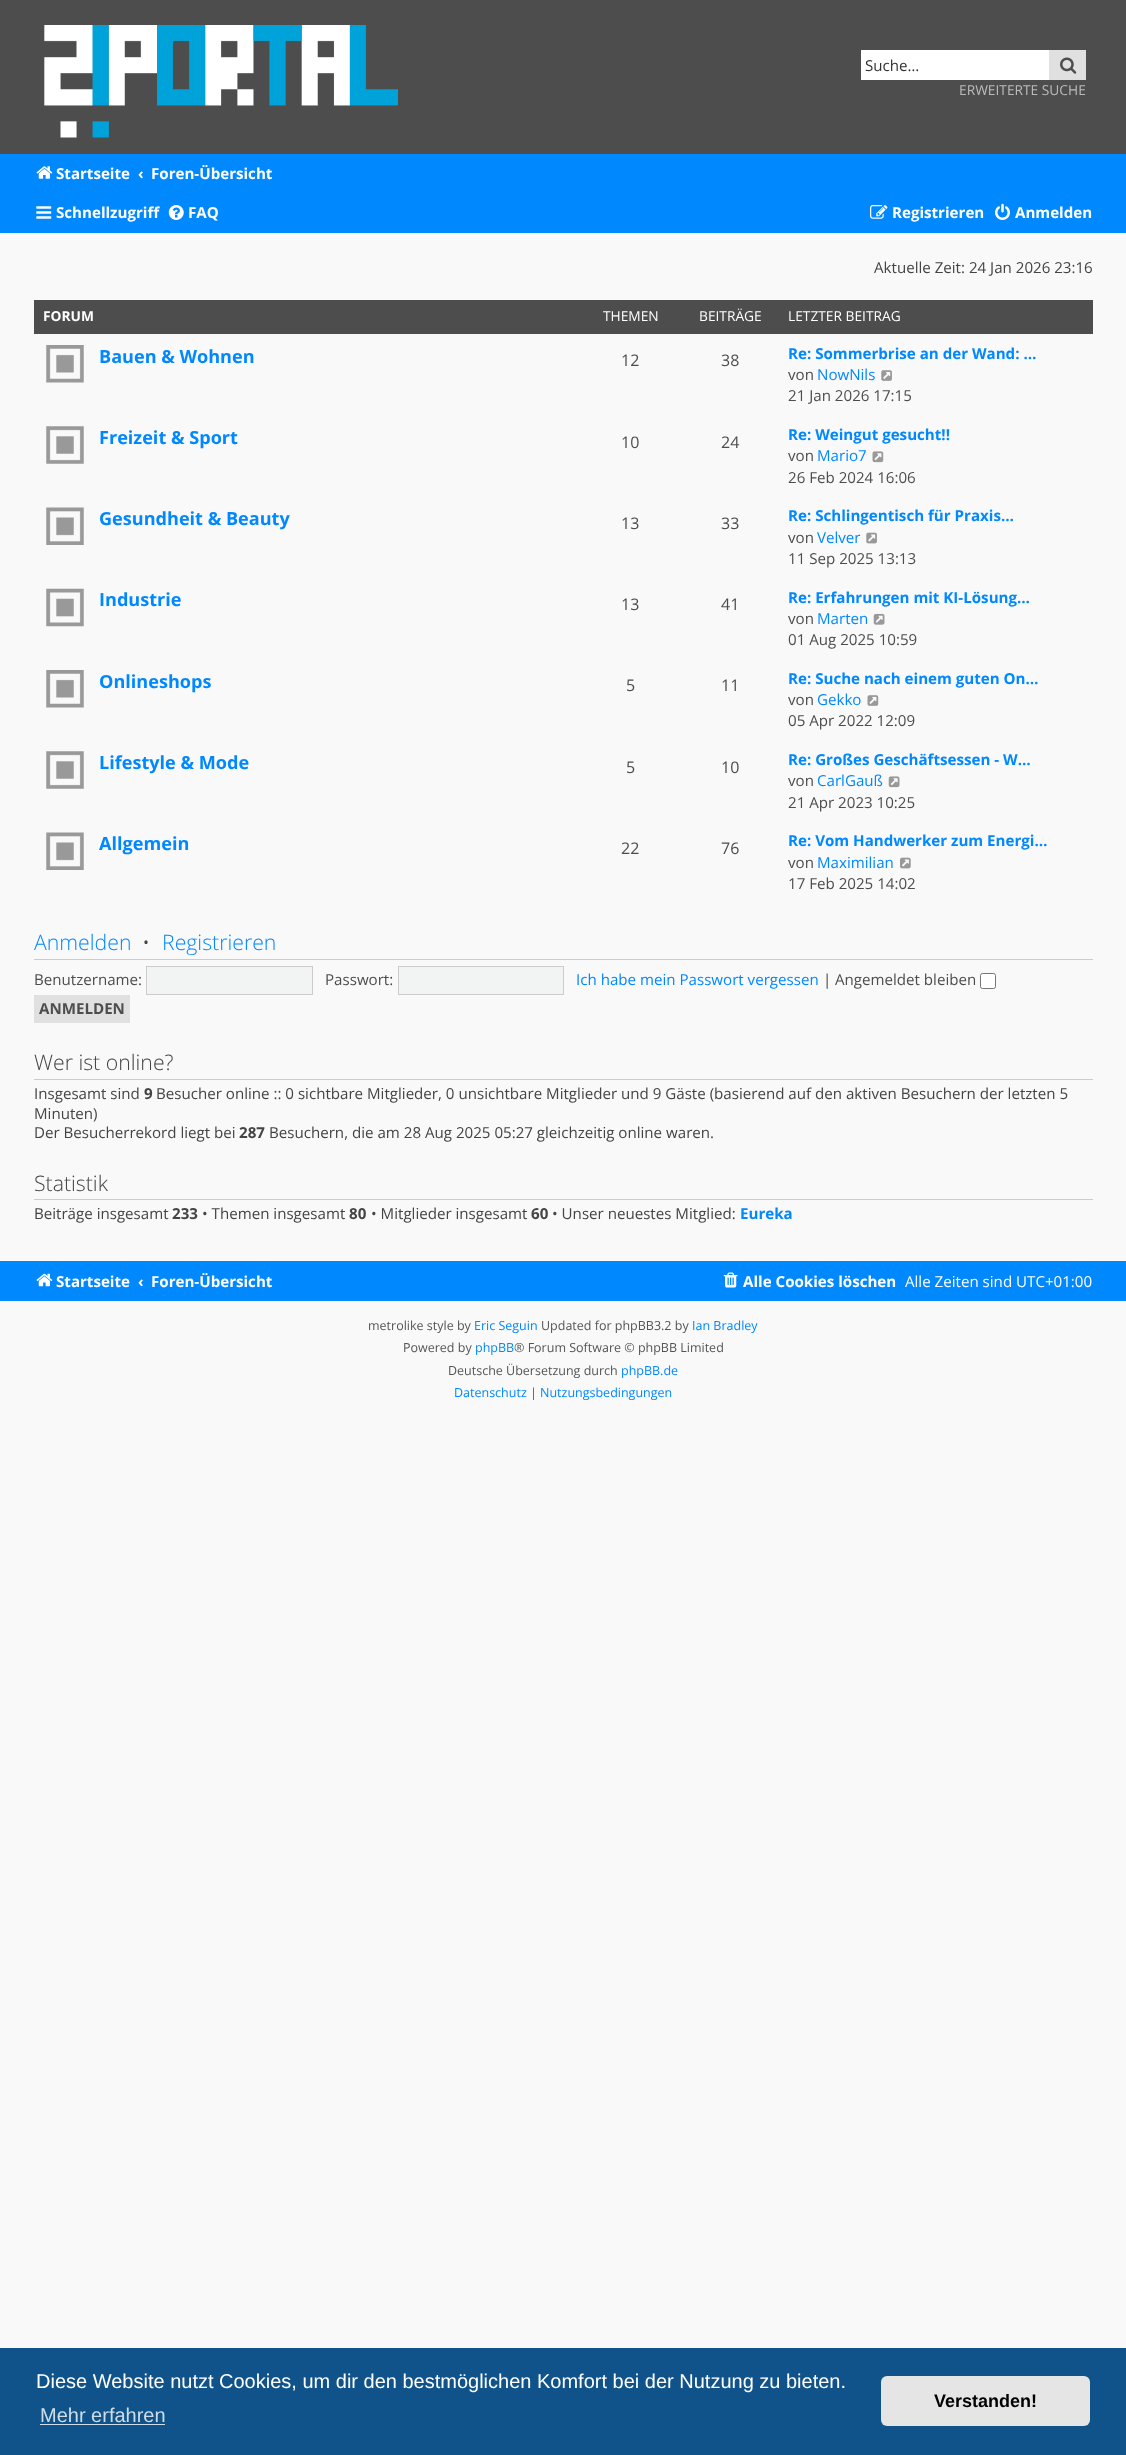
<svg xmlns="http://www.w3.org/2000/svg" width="1126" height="2455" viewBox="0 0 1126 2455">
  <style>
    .t1 { font: 15.12px Open Sans; fill: #333; }
    .t2 { font: 13.75px Open Sans; fill: #bbb; }
    .t3 { font: bold 15.12px Open Sans; fill: #fff; }
    .t4 { font: 15.12px Open Sans; fill: #444; }
    .t5 { font: bold 13.75px Open Sans; fill: #fff; }
    .t6 { font: 13.75px Open Sans; fill: #fff; }
    .t7 { font: bold 18.1px Open Sans; fill: #08f; }
    .t8 { font: 16px Open Sans; fill: #4d4d4d; }
    .t9 { font: bold 15.12px Open Sans; fill: #08f; }
    .t10 { font: 15.12px Open Sans; fill: #4d4d4d; }
    .t11 { font: 15.12px Open Sans; fill: #08f; }
    .t12 { font: 300 21.25px Open Sans; fill: #08f; }
    .t13 { font: 300 21.25px Open Sans; fill: #444; }
    .t14 { font: bold 15.12px Open Sans; fill: #4d4d4d; }
    .t15 { font: bold 15.12px Open Sans; fill: #444; }
    .t16 { font: 15.12px Open Sans; fill: #fff; }
    .t17 { font: 12.5px Open Sans; fill: #555; }
    .t18 { font: 12.5px Open Sans; fill: #08f; }
    .t19 { font: 20px Liberation Sans; fill: #fff; }
    .t20 { font: 20px Liberation Sans; fill: #cfdde8; }
    .t21 { font: bold 18px Liberation Sans; fill: #000; }
  </style>
  <rect width="100%" height="100%" fill="#f9f9f9"/>
  <rect x="0" y="0" width="1126" height="154" fill="#4d4d4d"/>
  <image x="44" y="25" width="354" height="113" href="images/1.png"/>
  <rect x="861" y="50" width="188" height="30" fill="#fff"/>
  <text x="865" y="71" class="t1">Suche…</text>
  <rect x="1049" y="50" width="37" height="30" fill="#e0e0e0"/>
  <image x="1060" y="57" width="17" height="17" href="images/2.png"/>
  <text x="959" y="95" class="t2">ERWEITERTE SUCHE</text>
  <rect x="0" y="154" width="1126" height="79" fill="#08f"/>
  <image x="36" y="166" width="17" height="13" href="images/3.png"/>
  <text x="56" y="179" class="t3">Startseite</text>
  <text x="138" y="179" class="t3">‹</text>
  <text x="151" y="179" class="t3">Foren-Übersicht</text>
  <image x="36" y="206" width="16" height="13" href="images/4.png"/>
  <text x="56" y="218" class="t3">Schnellzugriff</text>
  <image x="168" y="205" width="16" height="15" href="images/5.png"/>
  <text x="188" y="218" class="t3">FAQ</text>
  <image x="870" y="205" width="18" height="14" href="images/6.png"/>
  <text x="892" y="218" class="t3">Registrieren</text>
  <image x="995" y="203" width="15" height="17" href="images/7.png"/>
  <text x="1015" y="218" class="t3">Anmelden</text>
  <text x="874" y="273" class="t4">Aktuelle Zeit: 24 Jan 2026 23:16</text>
  <rect x="34" y="300" width="1059" height="34" fill="#4d4d4d"/>
  <text x="43" y="321" class="t5">FORUM</text>
  <text x="603" y="321" class="t6">THEMEN</text>
  <text x="699" y="321" class="t6">BEITRÄGE</text>
  <text x="788" y="321" class="t6">LETZTER BEITRAG</text>
  <image x="46" y="345" width="38" height="38" href="images/8.png"/>
  <text x="99" y="363" class="t7">Bauen &amp; Wohnen</text>
  <text x="621" y="366" class="t8">12</text>
  <text x="721" y="366" class="t8">38</text>
  <text x="788" y="359" class="t9">Re: Sommerbrise an der Wand: …</text>
  <text x="788" y="380" class="t10">von</text>
  <text x="817" y="380" class="t11">NowNils</text>
  <image x="881" y="370" width="11" height="11" href="images/9.png"/>
  <text x="788" y="401" class="t10">21 Jan 2026 17:15</text>
  <image x="46" y="426" width="38" height="38" href="images/10.png"/>
  <text x="99" y="444" class="t7">Freizeit &amp; Sport</text>
  <text x="621" y="448" class="t8">10</text>
  <text x="721" y="448" class="t8">24</text>
  <text x="788" y="440" class="t9">Re: Weingut gesucht!!</text>
  <text x="788" y="461" class="t10">von</text>
  <text x="817" y="461" class="t11">Mario7</text>
  <image x="872" y="451" width="12" height="12" href="images/11.png"/>
  <text x="788" y="483" class="t10">26 Feb 2024 16:06</text>
  <image x="46" y="507" width="38" height="38" href="images/12.png"/>
  <text x="99" y="525" class="t7">Gesundheit &amp; Beauty</text>
  <text x="621" y="529" class="t8">13</text>
  <text x="721" y="529" class="t8">33</text>
  <text x="788" y="521" class="t9">Re: Schlingentisch für Praxis…</text>
  <text x="788" y="543" class="t10">von</text>
  <text x="817" y="543" class="t11">Velver</text>
  <image x="866" y="532" width="11" height="12" href="images/13.png"/>
  <text x="788" y="564" class="t10">11 Sep 2025 13:13</text>
  <image x="46" y="588" width="38" height="39" href="images/14.png"/>
  <text x="99" y="606" class="t7">Industrie</text>
  <text x="621" y="610" class="t8">13</text>
  <text x="721" y="610" class="t8">41</text>
  <text x="788" y="603" class="t9">Re: Erfahrungen mit KI-Lösung…</text>
  <text x="788" y="624" class="t10">von</text>
  <text x="817" y="624" class="t11">Marten</text>
  <image x="873" y="613" width="12" height="12" href="images/15.png"/>
  <text x="788" y="645" class="t10">01 Aug 2025 10:59</text>
  <image x="46" y="670" width="38" height="38" href="images/8.png"/>
  <text x="99" y="688" class="t7">Onlineshops</text>
  <text x="626" y="691" class="t8">5</text>
  <text x="721" y="691" class="t8">11</text>
  <text x="788" y="684" class="t9">Re: Suche nach einem guten On…</text>
  <text x="788" y="705" class="t10">von</text>
  <text x="817" y="705" class="t11">Gekko</text>
  <image x="867" y="695" width="12" height="11" href="images/16.png"/>
  <text x="788" y="726" class="t10">05 Apr 2022 12:09</text>
  <image x="46" y="751" width="38" height="38" href="images/10.png"/>
  <text x="99" y="769" class="t7">Lifestyle &amp; Mode</text>
  <text x="626" y="773" class="t8">5</text>
  <text x="721" y="773" class="t8">10</text>
  <text x="788" y="765" class="t9">Re: Großes Geschäftsessen - W…</text>
  <text x="788" y="786" class="t10">von</text>
  <text x="817" y="786" class="t11">CarlGauß</text>
  <image x="888" y="776" width="12" height="12" href="images/17.png"/>
  <text x="788" y="808" class="t10">21 Apr 2023 10:25</text>
  <image x="46" y="832" width="38" height="38" href="images/12.png"/>
  <text x="99" y="850" class="t7">Allgemein</text>
  <text x="621" y="854" class="t8">22</text>
  <text x="721" y="854" class="t8">76</text>
  <text x="788" y="846" class="t9">Re: Vom Handwerker zum Energi…</text>
  <text x="788" y="868" class="t10">von</text>
  <text x="817" y="868" class="t11">Maximilian</text>
  <image x="900" y="857" width="11" height="12" href="images/18.png"/>
  <text x="788" y="889" class="t10">17 Feb 2025 14:02</text>
  <rect x="34" y="959" width="1059" height="1" fill="#ccc"/>
  <text x="34" y="950" class="t12">Anmelden</text>
  <text x="142" y="950" class="t13">•</text>
  <text x="162" y="950" class="t12">Registrieren</text>
  <text x="34" y="985" class="t10">Benutzername:</text>
  <rect x="146.5" y="966.5" width="166" height="28" fill="#f2f3f3" stroke="#ccc"/>
  <text x="325" y="985" class="t10">Passwort:</text>
  <rect x="398.5" y="966.5" width="165" height="28" fill="#f2f3f3" stroke="#ccc"/>
  <text x="576" y="985" class="t11">Ich habe mein Passwort vergessen</text>
  <text x="823" y="985" class="t4">|</text>
  <text x="835" y="985" class="t10">Angemeldet bleiben</text>
  <rect x="980.5" y="973.5" width="15" height="15" rx="2" fill="#fff" stroke="#767676"/>
  <rect x="34" y="995" width="96" height="28" fill="#e0e0e0"/>
  <text x="39" y="1014" class="t14">ANMELDEN</text>
  <rect x="34" y="1079" width="1059" height="1" fill="#ccc"/>
  <text x="34" y="1070" class="t13">Wer ist online?</text>
  <text x="34" y="1099" class="t4">Insgesamt sind</text>
  <text x="144" y="1099" class="t15">9</text>
  <text x="156" y="1099" class="t4">Besucher online :: 0 sichtbare Mitglieder, 0 unsichtbare Mitglieder und 9 Gäste (basierend auf den aktiven Besuchern der letzten 5</text>
  <text x="34" y="1119" class="t4">Minuten)</text>
  <text x="34" y="1138" class="t4">Der Besucherrekord liegt bei</text>
  <text x="239" y="1138" class="t15">287</text>
  <text x="269" y="1138" class="t4">Besuchern, die am 28 Aug 2025 05:27 gleichzeitig online waren.</text>
  <rect x="34" y="1199" width="1059" height="1" fill="#ccc"/>
  <text x="34" y="1191" class="t13">Statistik</text>
  <text x="34" y="1219" class="t4">Beiträge insgesamt</text>
  <text x="172" y="1219" class="t15">233</text>
  <text x="202" y="1219" class="t4">• Themen insgesamt</text>
  <text x="349" y="1219" class="t15">80</text>
  <text x="371" y="1219" class="t4">• Mitglieder insgesamt</text>
  <text x="531" y="1219" class="t15">60</text>
  <text x="552" y="1219" class="t4">• Unser neuestes Mitglied:</text>
  <text x="740" y="1219" class="t9">Eureka</text>
  <rect x="0" y="1261" width="1126" height="40" fill="#08f"/>
  <image x="36" y="1273" width="17" height="14" href="images/19.png"/>
  <text x="56" y="1287" class="t3">Startseite</text>
  <text x="138" y="1287" class="t3">‹</text>
  <text x="151" y="1287" class="t3">Foren-Übersicht</text>
  <image x="723" y="1272" width="15" height="16" href="images/20.png"/>
  <text x="743" y="1287" class="t3">Alle Cookies löschen</text>
  <text x="905" y="1287" class="t16">Alle Zeiten sind UTC+01:00</text>
  <text x="368" y="1330" class="t17">metrolike style by</text>
  <text x="474" y="1330" class="t18">Eric Seguin</text>
  <text x="541" y="1330" class="t17">Updated for phpBB3.2 by</text>
  <text x="692" y="1330" class="t18">Ian Bradley</text>
  <text x="403" y="1352" class="t17">Powered by</text>
  <text x="475" y="1352" class="t18">phpBB</text>
  <text x="514" y="1352" class="t17">® Forum Software © phpBB Limited</text>
  <text x="448" y="1375" class="t17">Deutsche Übersetzung durch</text>
  <text x="621" y="1375" class="t18">phpBB.de</text>
  <text x="454" y="1397" class="t18">Datenschutz</text>
  <text x="530" y="1397" class="t17">|</text>
  <text x="540" y="1397" class="t18">Nutzungsbedingungen</text>
  <rect x="0" y="2348" width="1126" height="107" fill="#0f538a"/>
  <text x="36" y="2388" class="t19">Diese Website nutzt Cookies, um dir den bestmöglichen Komfort bei der Nutzung zu bieten.</text>
  <text x="40" y="2422" class="t20">Mehr erfahren</text>
  <rect x="40" y="2424" width="125" height="1" fill="#cfdde8"/>
  <rect x="881" y="2376" width="209" height="50" rx="6" fill="#e5e5e5"/>
  <text x="934" y="2407" class="t21">Verstanden!</text>
</svg>
